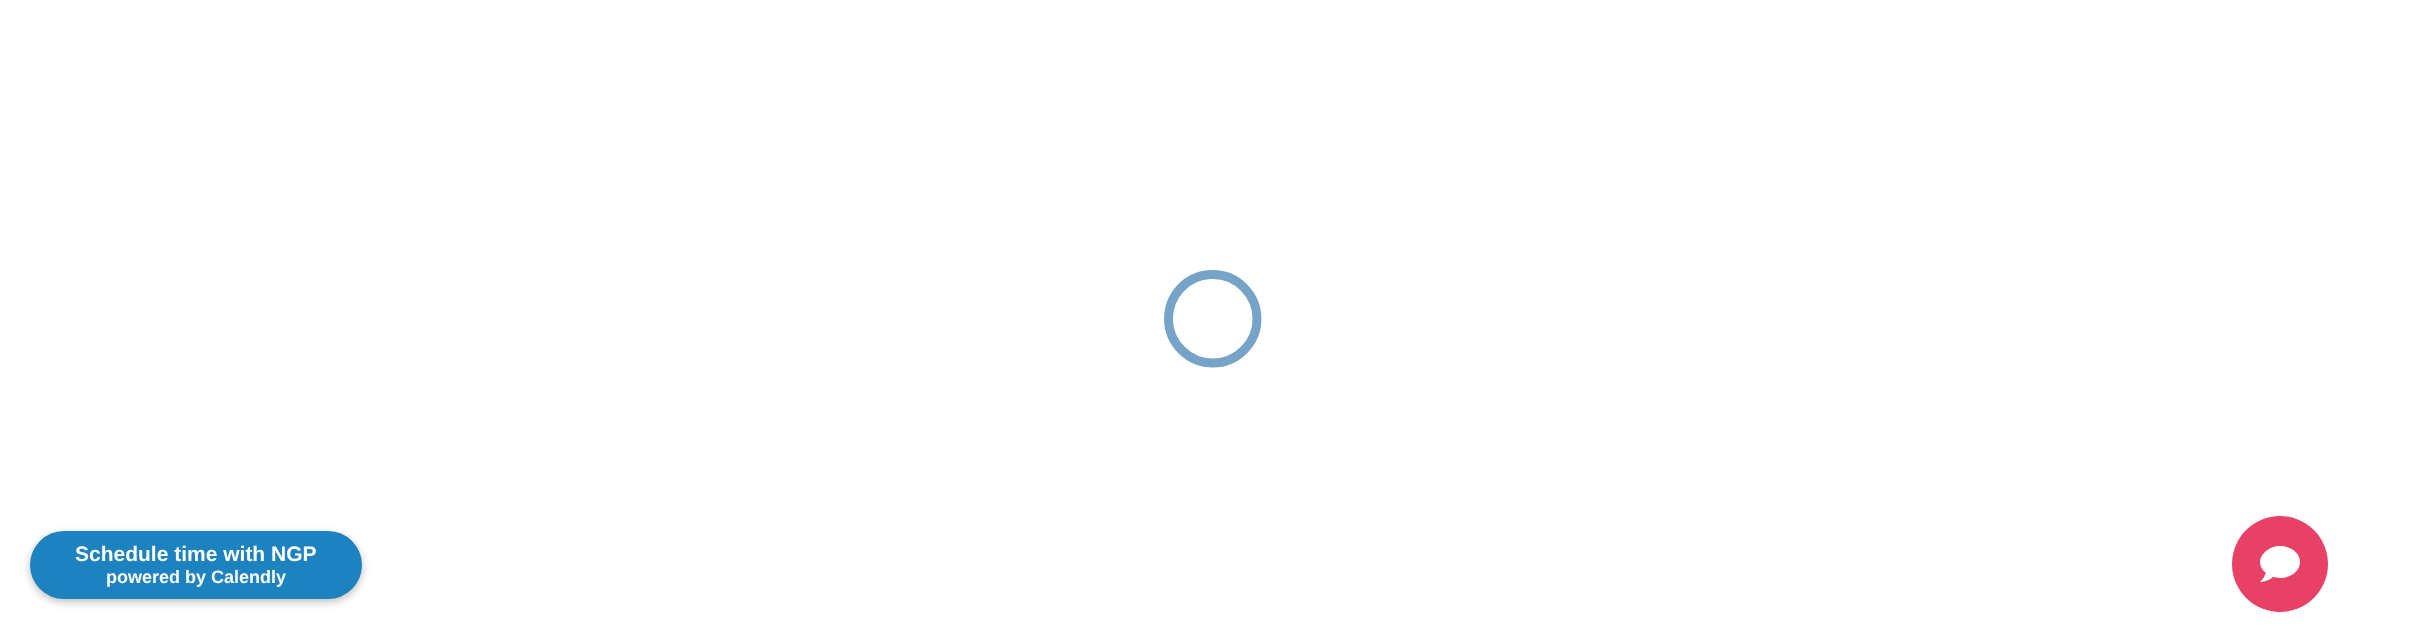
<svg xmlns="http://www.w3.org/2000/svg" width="2424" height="635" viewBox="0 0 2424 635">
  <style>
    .t1 { font: bold 21px Liberation Sans; fill: #fff; }
    .t2 { font: bold 18px Liberation Sans; fill: #fff; }
  </style>
  <rect width="100%" height="100%" fill="#fff"/>
  <path d="M1213 274.5C1237 274.5 1257 294.5 1257 319C1257 343 1237 363 1213 363C1188.5 363 1168.5 343 1168.5 319C1168.5 295 1187 275.5 1210.5 274.5" fill="none" stroke="#76a4c8" stroke-width="8.9" stroke-linecap="round"/>
  <rect x="30" y="534" width="332" height="68" rx="34" fill="#00000040" filter="blur(4px)"/>
  <rect x="30" y="531" width="332" height="68" rx="34" fill="#1d82c0"/>
  <text x="75" y="561" class="t1">Schedule time with NGP</text>
  <text x="106" y="583" class="t2">powered by Calendly</text>
  <circle cx="2280" cy="564" r="48" fill="#e74266"/>
  <path d="M2280 546C2291 546 2300 553 2300 562C2300 571 2291 578 2280 578L2273 577C2267 582 2260 582 2260 582C2265 577 2265 574 2266 573C2252 562 2265 546 2280 546" fill="#fff"/>
</svg>
